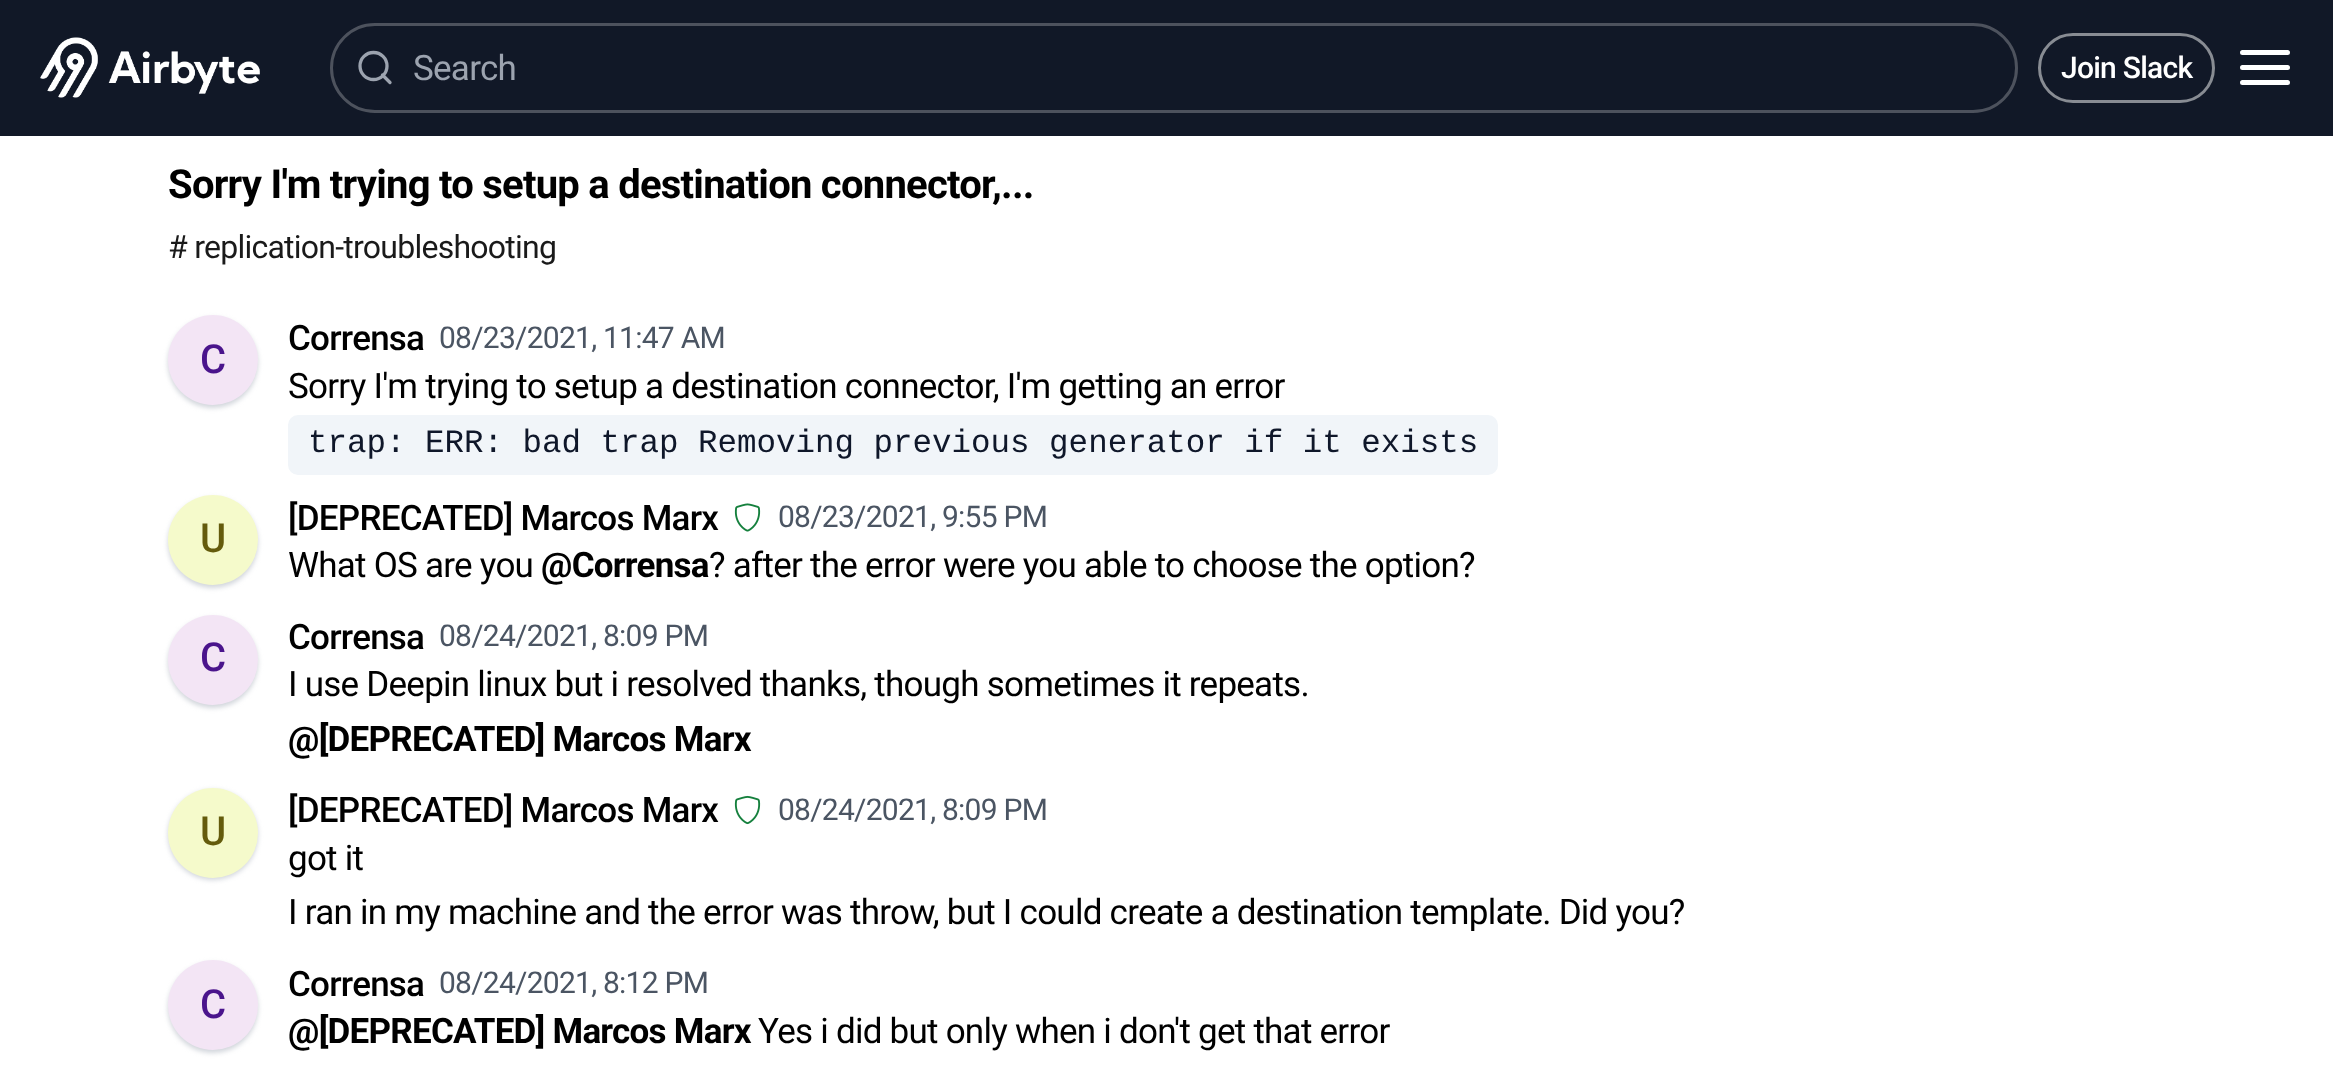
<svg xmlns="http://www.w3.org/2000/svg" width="2333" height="1080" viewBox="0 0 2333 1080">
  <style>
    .t1 { font: 35px Roboto; letter-spacing: -0.75px; fill: #9ca3af; }
    .t2 { font: 500 30px Roboto; letter-spacing: -0.75px; fill: #fff; }
    .t3 { font: bold 40px Roboto; letter-spacing: -0.75px; fill: #000; }
    .t4 { font: 32px Roboto; letter-spacing: -0.75px; fill: #1a1a1a; }
    .t5 { font: 500 40px Roboto; letter-spacing: -0.75px; fill: #4a148c; }
    .t6 { font: 500 35px Roboto; letter-spacing: -0.75px; fill: #000; }
    .t7 { font: 30px Roboto; letter-spacing: -0.75px; fill: #4b5563; }
    .t8 { font: 35px Roboto; letter-spacing: -0.75px; fill: #000; }
    .t9 { font: 32.5px Liberation Mono; fill: #0f172a; }
    .t10 { font: 500 40px Roboto; letter-spacing: -0.75px; fill: #645b0c; }
    .t11 { font: bold 35px Roboto; letter-spacing: -0.75px; fill: #000; }
  </style>
  <rect width="100%" height="100%" fill="#fff"/>
  <rect x="0" y="0" width="2333" height="136" fill="#111827"/>
  <image x="40" y="37" width="220" height="61" href="images/1.png"/>
  <rect x="331.5" y="24.5" width="1685" height="87" rx="43.5" fill="none" stroke="#4d525d" stroke-width="3"/>
  <circle cx="373.5" cy="66" r="13.5" fill="none" stroke="#9ca3af" stroke-width="3.3"/>
  <path d="M390 82.5L382.5 75" fill="none" stroke="#9ca3af" stroke-width="3.3" stroke-linecap="round" stroke-linejoin="round"/>
  <text x="413" y="80" class="t1">Search</text>
  <rect x="2039.5" y="34.5" width="174" height="67" rx="33.5" fill="none" stroke="#888c93" stroke-width="3"/>
  <text x="2061" y="78" class="t2">Join Slack</text>
  <path d="M2242.5 67.5H2287.5M2242.5 52.5H2287.5M2242.5 82.5H2287.5" fill="none" stroke="#fff" stroke-width="5" stroke-linecap="round" stroke-linejoin="round"/>
  <text x="168" y="198" class="t3">Sorry I'm trying to setup a destination connector,...</text>
  <text x="168" y="258" class="t4"># replication-troubleshooting</text>
  <rect x="168" y="318" width="90" height="90" rx="45" fill="#d1d5db" filter="blur(2.5px)"/>
  <circle cx="213" cy="360" r="45" fill="#f3e5f5"/>
  <text x="200" y="373" class="t5">C</text>
  <text x="288" y="350" class="t6">Corrensa</text>
  <text x="439" y="348" class="t7">08/23/2021, 11:47 AM</text>
  <text x="288" y="398" class="t8">Sorry I'm trying to setup a destination connector, I'm getting an error</text>
  <rect x="288" y="415" width="1210" height="60" rx="10" fill="#f1f5f9"/>
  <text x="308" y="452" class="t9">trap: ERR: bad trap Removing previous generator if it exists</text>
  <rect x="168" y="498" width="90" height="90" rx="45" fill="#d1d5db" filter="blur(2.5px)"/>
  <circle cx="213" cy="540" r="45" fill="#f5facb"/>
  <text x="200" y="552" class="t10">U</text>
  <text x="288" y="530" class="t6">[DEPRECATED] Marcos Marx</text>
  <image x="734" y="503" width="27" height="29" href="images/2.png"/>
  <text x="778" y="527" class="t7">08/23/2021, 9:55 PM</text>
  <text x="288" y="577" class="t8">What OS are you</text>
  <text x="541" y="577" class="t11">@Corrensa</text>
  <text x="709" y="577" class="t8">? after the error were you able to choose the option?</text>
  <rect x="168" y="618" width="90" height="90" rx="45" fill="#d1d5db" filter="blur(2.5px)"/>
  <circle cx="213" cy="660" r="45" fill="#f3e5f5"/>
  <text x="200" y="671" class="t5">C</text>
  <text x="288" y="649" class="t6">Corrensa</text>
  <text x="439" y="646" class="t7">08/24/2021, 8:09 PM</text>
  <text x="288" y="696" class="t8">I use Deepin linux but i resolved thanks, though sometimes it repeats.</text>
  <text x="288" y="751" class="t11">@[DEPRECATED] Marcos Marx</text>
  <rect x="168" y="790" width="90" height="90" rx="45" fill="#d1d5db" filter="blur(2.5px)"/>
  <circle cx="213" cy="833" r="45" fill="#f5facb"/>
  <text x="200" y="845" class="t10">U</text>
  <text x="288" y="822" class="t6">[DEPRECATED] Marcos Marx</text>
  <image x="734" y="795" width="27" height="30" href="images/3.png"/>
  <text x="778" y="820" class="t7">08/24/2021, 8:09 PM</text>
  <text x="288" y="870" class="t8">got it</text>
  <text x="288" y="924" class="t8">I ran in my machine and the error was throw, but I could create a destination template. Did you?</text>
  <rect x="168" y="963" width="90" height="90" rx="45" fill="#d1d5db" filter="blur(2.5px)"/>
  <circle cx="213" cy="1005" r="45" fill="#f3e5f5"/>
  <text x="200" y="1018" class="t5">C</text>
  <text x="288" y="996" class="t6">Corrensa</text>
  <text x="439" y="993" class="t7">08/24/2021, 8:12 PM</text>
  <text x="288" y="1043" class="t11">@[DEPRECATED] Marcos Marx</text>
  <text x="758" y="1043" class="t8">Yes i did but only when i don't get that error</text>
</svg>
